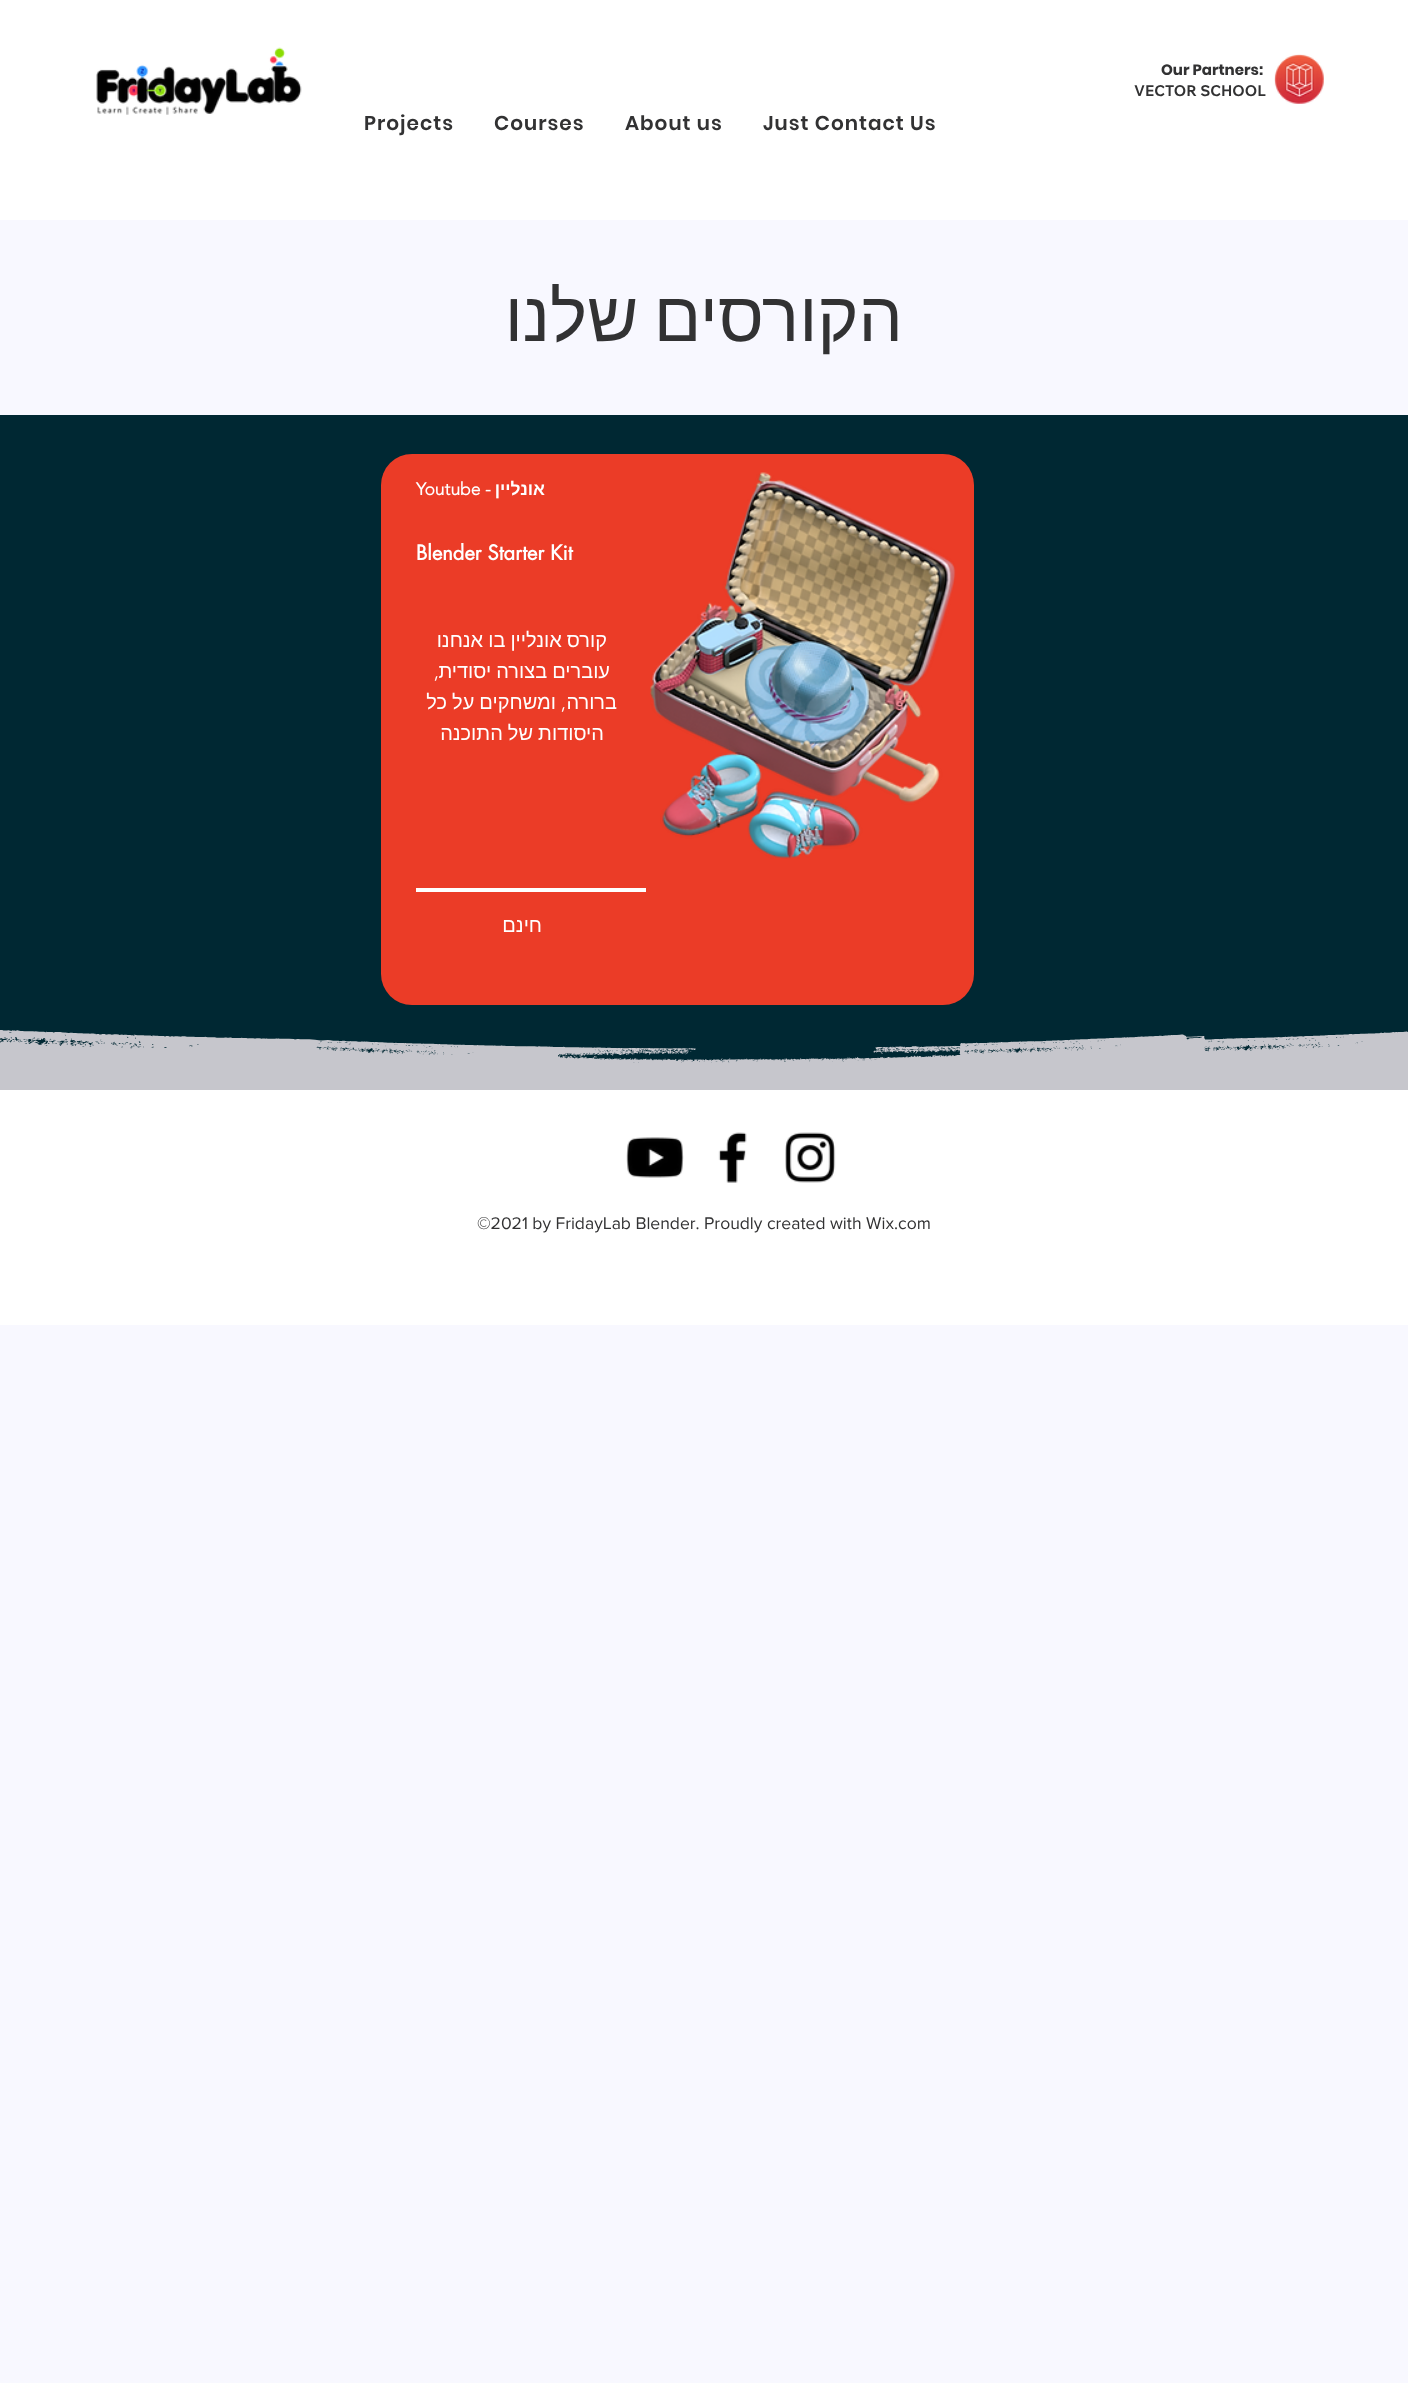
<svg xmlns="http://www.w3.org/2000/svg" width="1408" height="2383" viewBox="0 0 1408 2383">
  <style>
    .t1 { font: bold 15px Poppins; fill: #323233; }
    .t2 { font: bold 15px Wix Madefor Text; fill: #323233; }
    .t3 { font: 600 20px Poppins; letter-spacing: 1px; fill: #323233; }
    .t4 { font: 70px Liberation Sans; direction: rtl; fill: #323233; }
    .t5 { font: bold 17.5px 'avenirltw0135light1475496'; fill: #fff; }
    .t6 { font: bold 17.5px Liberation Sans; direction: rtl; fill: #fff; }
    .t7 { font: bold 20px futura; fill: #fff; }
    .t8 { font: 20px Liberation Sans; direction: rtl; fill: #fff; }
    .t9 { font: 300 20px 'avenirltw0135light1475496'; direction: rtl; fill: #fff; }
    .t10 { font: 17.5px 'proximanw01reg'; fill: #323233; }
  </style>
  <rect width="100%" height="100%" fill="#f8f8ff"/>
  <rect x="0" y="0" width="1408" height="220" fill="#fff"/>
  <image x="96" y="47" width="206" height="68" href="images/1.png"/>
  <text x="1161" y="75" class="t1">Our Partners:</text>
  <text x="1134" y="96" class="t2">VECTOR SCHOOL</text>
  <image x="1274" y="54" width="50" height="50" href="images/2.png"/>
  <text x="364" y="130" class="t3">Projects</text>
  <text x="494" y="130" class="t3">Courses</text>
  <text x="625" y="130" class="t3">About us</text>
  <text x="763" y="130" class="t3">Just Contact Us</text>
  <text x="903" y="341" word-spacing="-4" class="t4">הקורסים שלנו</text>
  <rect x="0" y="415" width="1408" height="648" fill="#002833"/>
  <rect x="381" y="454" width="593" height="551" rx="31" fill="#eb3c27"/>
  <text x="416" y="495" class="t5">Youtube -</text>
  <text x="545" y="495" class="t6">אונליין</text>
  <image x="650" y="472" width="306" height="387" href="images/3.png"/>
  <text x="416" y="560" class="t7">Blender Starter Kit</text>
  <text x="607" y="647" word-spacing="-0.5" class="t8">קורס אונליין בו אנחנו</text>
  <text x="439" y="678" class="t9">,</text>
  <text x="610" y="678" word-spacing="-0.5" class="t8">עוברים בצורה יסודית</text>
  <text x="556" y="709" word-spacing="-0.5" class="t8">ומשחקים על כל</text>
  <text x="617" y="709" class="t8">ברורה</text>
  <text x="566" y="709" class="t9">,</text>
  <text x="604" y="740" word-spacing="-0.5" class="t8">היסודות של התוכנה</text>
  <rect x="416" y="888" width="230" height="4" fill="#fff"/>
  <text x="542" y="932" class="t8">חינם</text>
  <image x="0" y="1030" width="1408" height="60" href="images/4.png"/>
  <rect x="0" y="1090" width="1408" height="235" fill="#fff"/>
  <image x="626" y="1137" width="58" height="41" href="images/5.png"/>
  <image x="718" y="1132" width="29" height="51" href="images/6.png"/>
  <image x="785" y="1132" width="51" height="51" href="images/7.png"/>
  <text x="477" y="1229" class="t10">©2021 by FridayLab Blender. Proudly created with Wix.com</text>
</svg>
